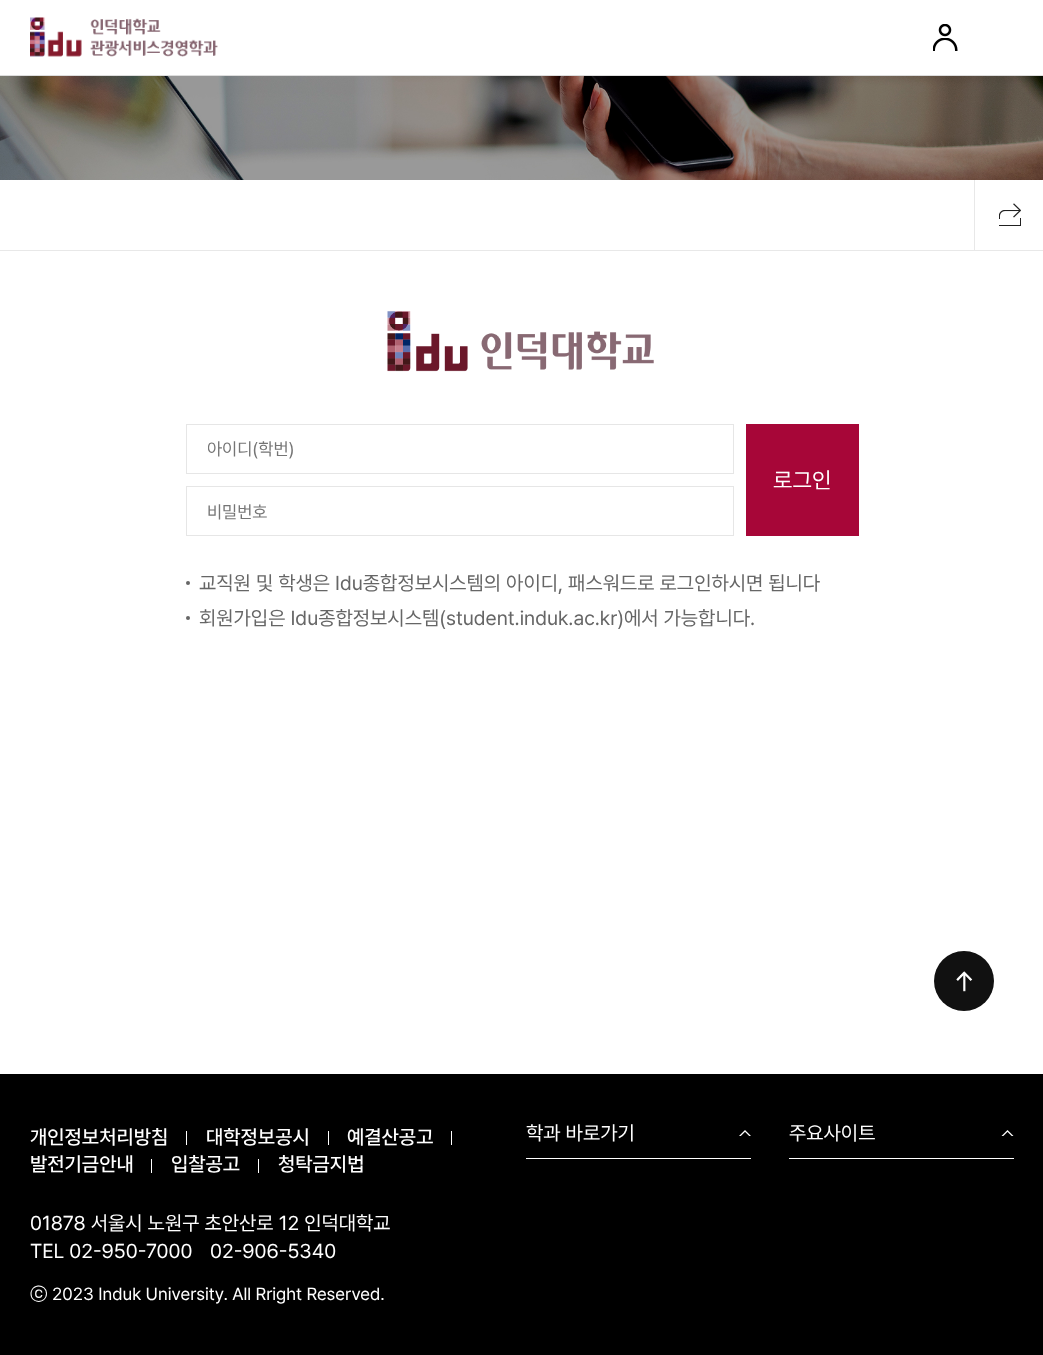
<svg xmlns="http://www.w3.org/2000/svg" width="1043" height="1355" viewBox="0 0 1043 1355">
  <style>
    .t1 { font: 17.5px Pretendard; fill: #757575; }
    .t2 { font: 22.5px Pretendard; fill: #fff; }
    .t3 { font: 20px Pretendard; fill: #666; }
    .t4 { font: 500 20px Pretendard; fill: #fff; }
    .t5 { font: 20px Pretendard; fill: #fff; }
    .t6 { font: 500 17.5px WenQuanYi Zen Hei; fill: #fff; }
    .t7 { font: 17.5px Pretendard; fill: #fff; }
  </style>
  <defs>
    <clipPath id="clip1"><rect x="208" y="439" width="505" height="20"/></clipPath>
  </defs>
  <rect width="100%" height="100%" fill="#fff"/>
  <image x="30" y="17" width="188" height="40" href="images/1.png"/>
  <image x="933" y="24" width="25" height="27" href="images/2.png"/>
  <rect x="0" y="75" width="1043" height="1" fill="#ddd"/>
  <image x="0" y="76" width="1043" height="104" href="images/3.png"/>
  <rect x="0" y="250" width="1043" height="1" fill="#e8e8e8"/>
  <rect x="974" y="180" width="1" height="70" fill="#e8e8e8"/>
  <image x="999" y="203" width="22" height="23" href="images/4.png"/>
  <image x="387" y="311" width="267" height="61" href="images/5.png"/>
  <rect x="186.5" y="424.5" width="547" height="49" fill="none" stroke="#e6e6e6"/>
  <g clip-path="url(#clip1)">
    <text x="207" y="455" class="t1">아이디(학번)</text>
  </g>
  <rect x="746" y="424" width="113" height="112" fill="#a70638"/>
  <text x="773" y="488" class="t2">로그인</text>
  <rect x="186.5" y="486.5" width="547" height="49" fill="none" stroke="#e6e6e6"/>
  <text x="207" y="518" class="t1">비밀번호</text>
  <circle cx="188" cy="583" r="2" fill="#666"/>
  <text x="199" y="590" class="t3">교직원 및 학생은 Idu종합정보시스템의 아이디, 패스워드로 로그인하시면 됩니다</text>
  <circle cx="188" cy="618" r="2" fill="#666"/>
  <text x="199" y="625" class="t3">회원가입은 Idu종합정보시스템(student.induk.ac.kr)에서 가능합니다.</text>
  <circle cx="964" cy="981" r="30" fill="#111"/>
  <image x="956" y="971" width="17" height="21" href="images/6.png"/>
  <rect x="0" y="1074" width="1043" height="281" fill="#000"/>
  <text x="30" y="1144" class="t4">개인정보처리방침</text>
  <rect x="186" y="1131" width="1" height="14" fill="#fff"/>
  <text x="206" y="1144" class="t4">대학정보공시</text>
  <rect x="328" y="1131" width="1" height="14" fill="#fff"/>
  <text x="347" y="1144" class="t4">예결산공고</text>
  <rect x="451" y="1131" width="1" height="14" fill="#fff"/>
  <text x="30" y="1171" class="t4">발전기금안내</text>
  <rect x="151" y="1159" width="1" height="14" fill="#fff"/>
  <text x="171" y="1171" class="t4">입찰공고</text>
  <rect x="258" y="1159" width="1" height="14" fill="#fff"/>
  <text x="278" y="1171" class="t4">청탁금지법</text>
  <image x="739" y="1130" width="12" height="6" href="images/7.png"/>
  <rect x="526" y="1158" width="225" height="1" fill="#fff"/>
  <text x="526" y="1140" class="t5">학과 바로가기</text>
  <image x="1001" y="1130" width="13" height="6" href="images/8.png"/>
  <rect x="789" y="1158" width="225" height="1" fill="#fff"/>
  <text x="789" y="1140" class="t5">주요사이트</text>
  <text x="30" y="1230" class="t5">01878 서울시 노원구 초안산로 12 인덕대학교</text>
  <text x="30" y="1258" class="t5">TEL 02-950-7000</text>
  <text x="210" y="1258" class="t5">02-906-5340</text>
  <text x="30" y="1300" class="t6">ⓒ</text>
  <text x="52" y="1300" class="t7">2023 Induk University. All Rright Reserved.</text>
</svg>
